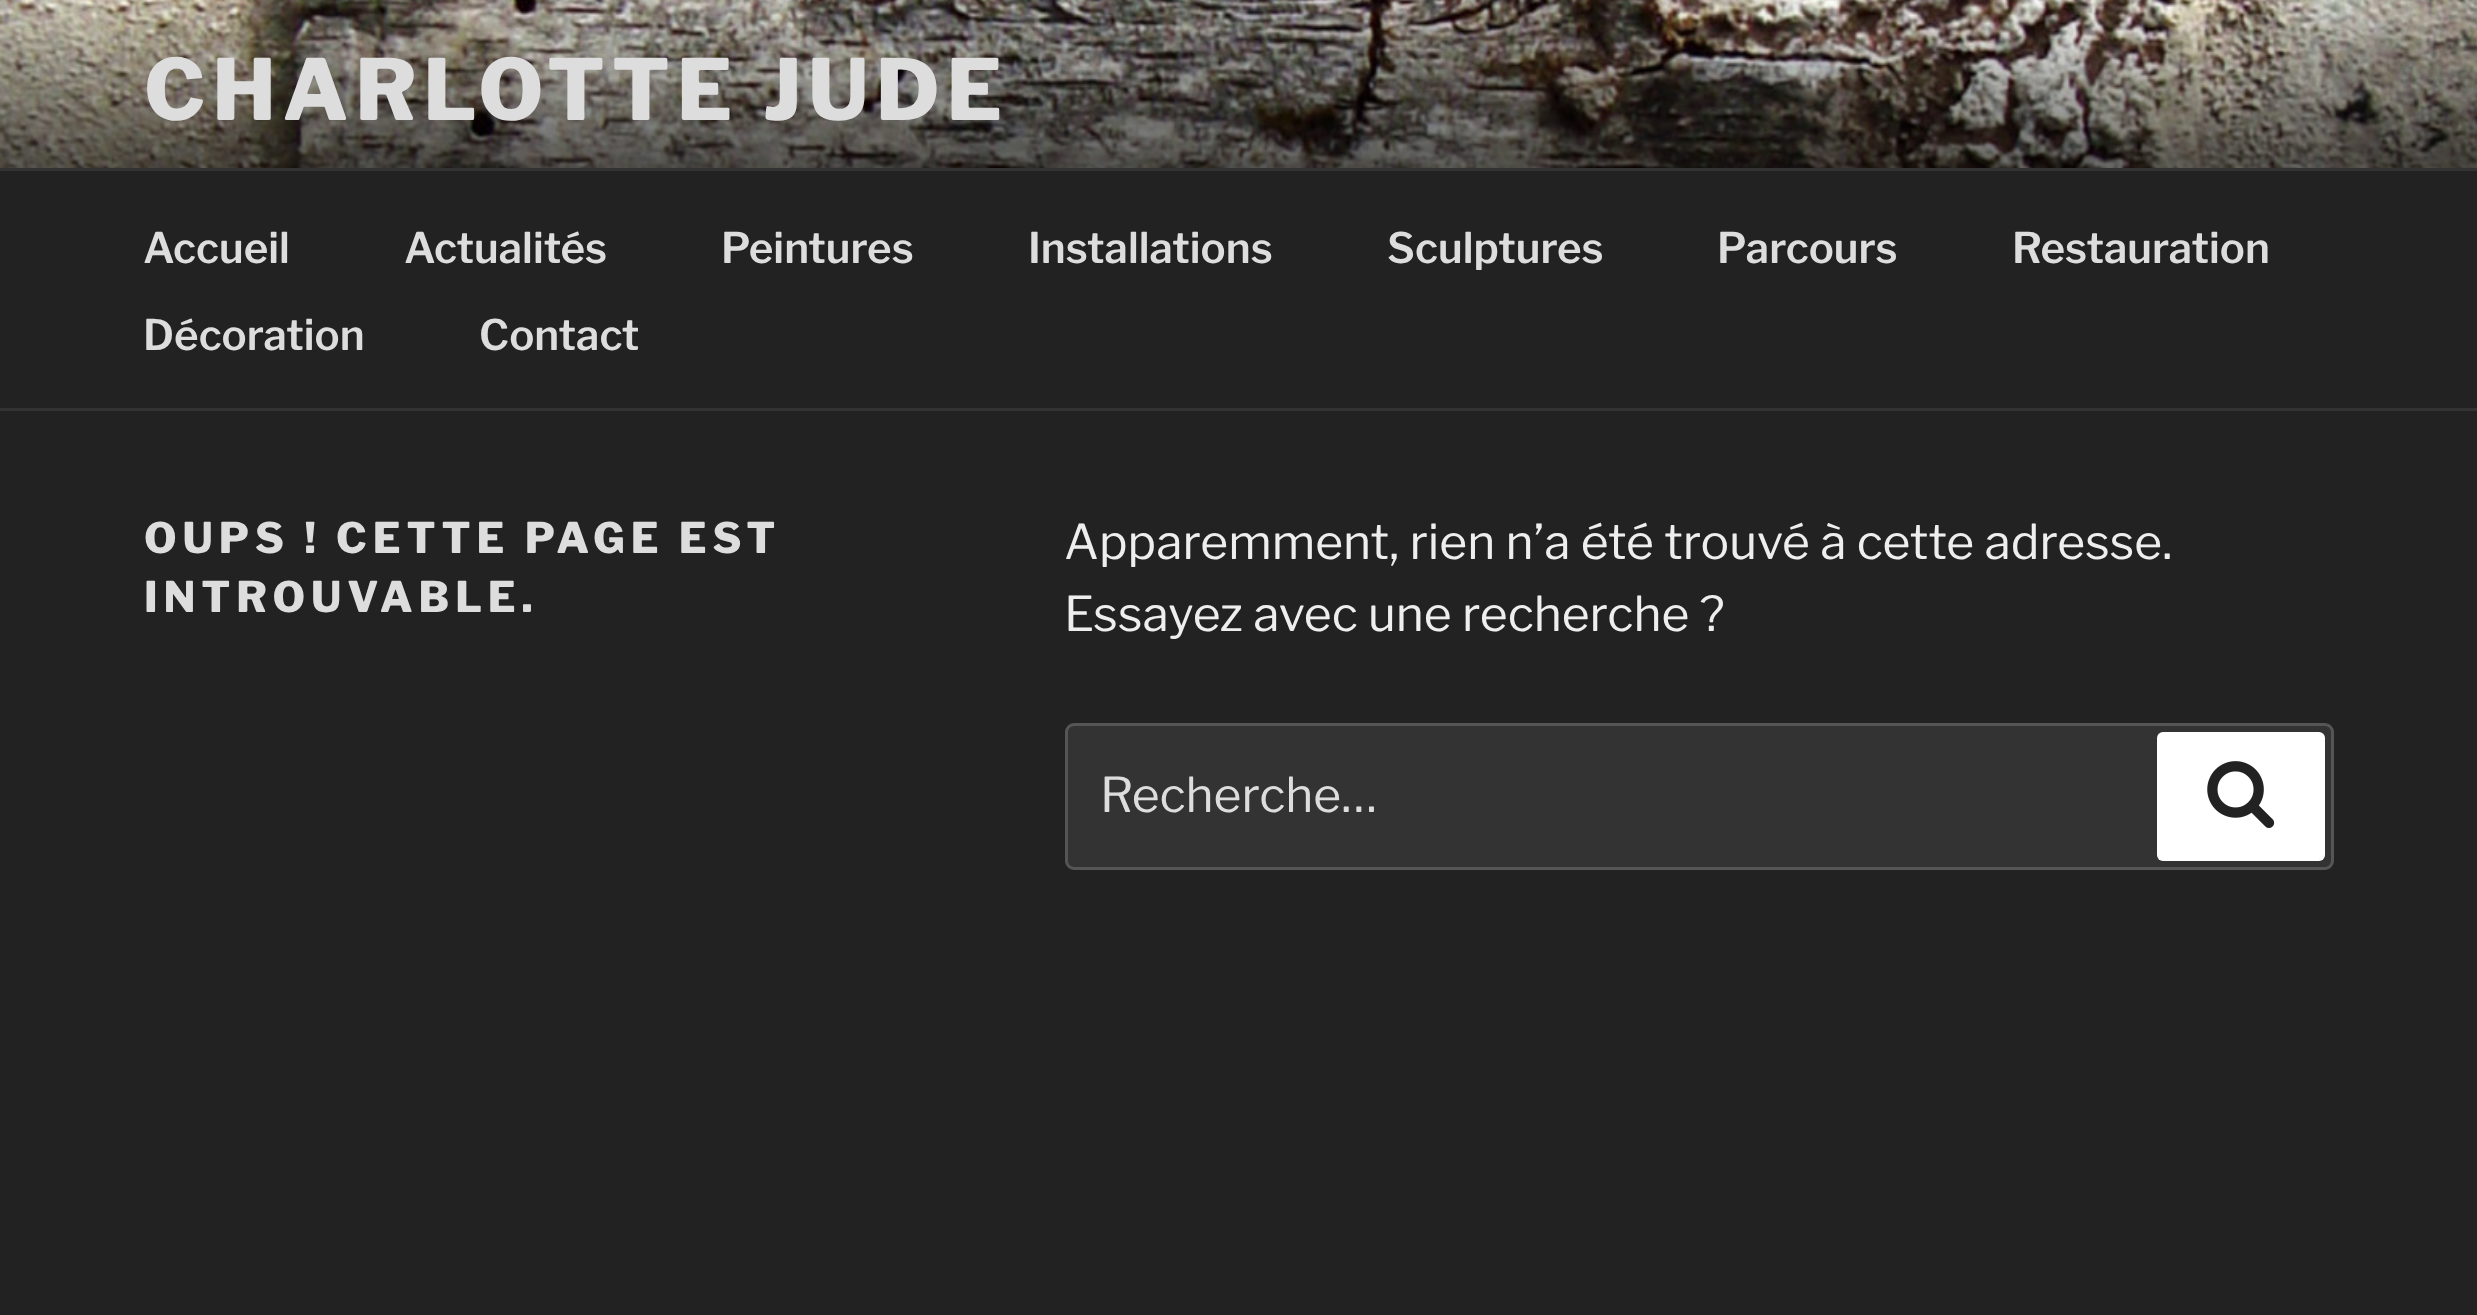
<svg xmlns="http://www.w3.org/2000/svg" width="2477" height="1315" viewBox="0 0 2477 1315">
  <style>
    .t1 { font: 100 84px Libre Franklin; letter-spacing: 6.75px; fill: #ddd; }
    .t2 { font: 100 42px 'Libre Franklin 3'; fill: #ddd; }
    .t3 { font: 100 42px Libre Franklin; letter-spacing: 5.9px; fill: #ddd; }
    .t4 { font: 100 48px 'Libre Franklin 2'; fill: #eee; }
    .t5 { font: 100 48px 'Libre Franklin 2'; fill: #ddd; }
  </style>
  <rect width="100%" height="100%" fill="#222"/>
  <image x="0" y="0" width="2477" height="168" href="images/1.png"/>
  <text x="144" y="120" class="t1">CHARLOTTE JUDE</text>
  <rect x="0" y="168" width="2477" height="3" fill="#333"/>
  <rect x="0" y="408" width="2477" height="3" fill="#333"/>
  <text x="143" y="263" class="t2">Accueil</text>
  <text x="404" y="263" class="t2">Actualités</text>
  <text x="721" y="263" class="t2">Peintures</text>
  <text x="1028" y="263" class="t2">Installations</text>
  <text x="1387" y="263" class="t2">Sculptures</text>
  <text x="1717" y="263" class="t2">Parcours</text>
  <text x="2012" y="263" class="t2">Restauration</text>
  <text x="143" y="350" class="t2">Décoration</text>
  <text x="479" y="350" class="t2">Contact</text>
  <text x="144" y="553" class="t3">OUPS ! CETTE PAGE EST</text>
  <text x="144" y="612" class="t3">INTROUVABLE.</text>
  <text x="1064" y="559" class="t4">Apparemment, rien n’a été trouvé à cette adresse.</text>
  <text x="1064" y="631" class="t4">Essayez avec une recherche ?</text>
  <rect x="1066.5" y="724.5" width="1266" height="144" rx="7.5" fill="#333" stroke="#555" stroke-width="3"/>
  <text x="1100" y="812" class="t5">Recherche…</text>
  <rect x="2157" y="732" width="168" height="129" rx="6" fill="#fff"/>
  <image x="2207" y="761" width="68" height="67" href="images/2.png"/>
</svg>
